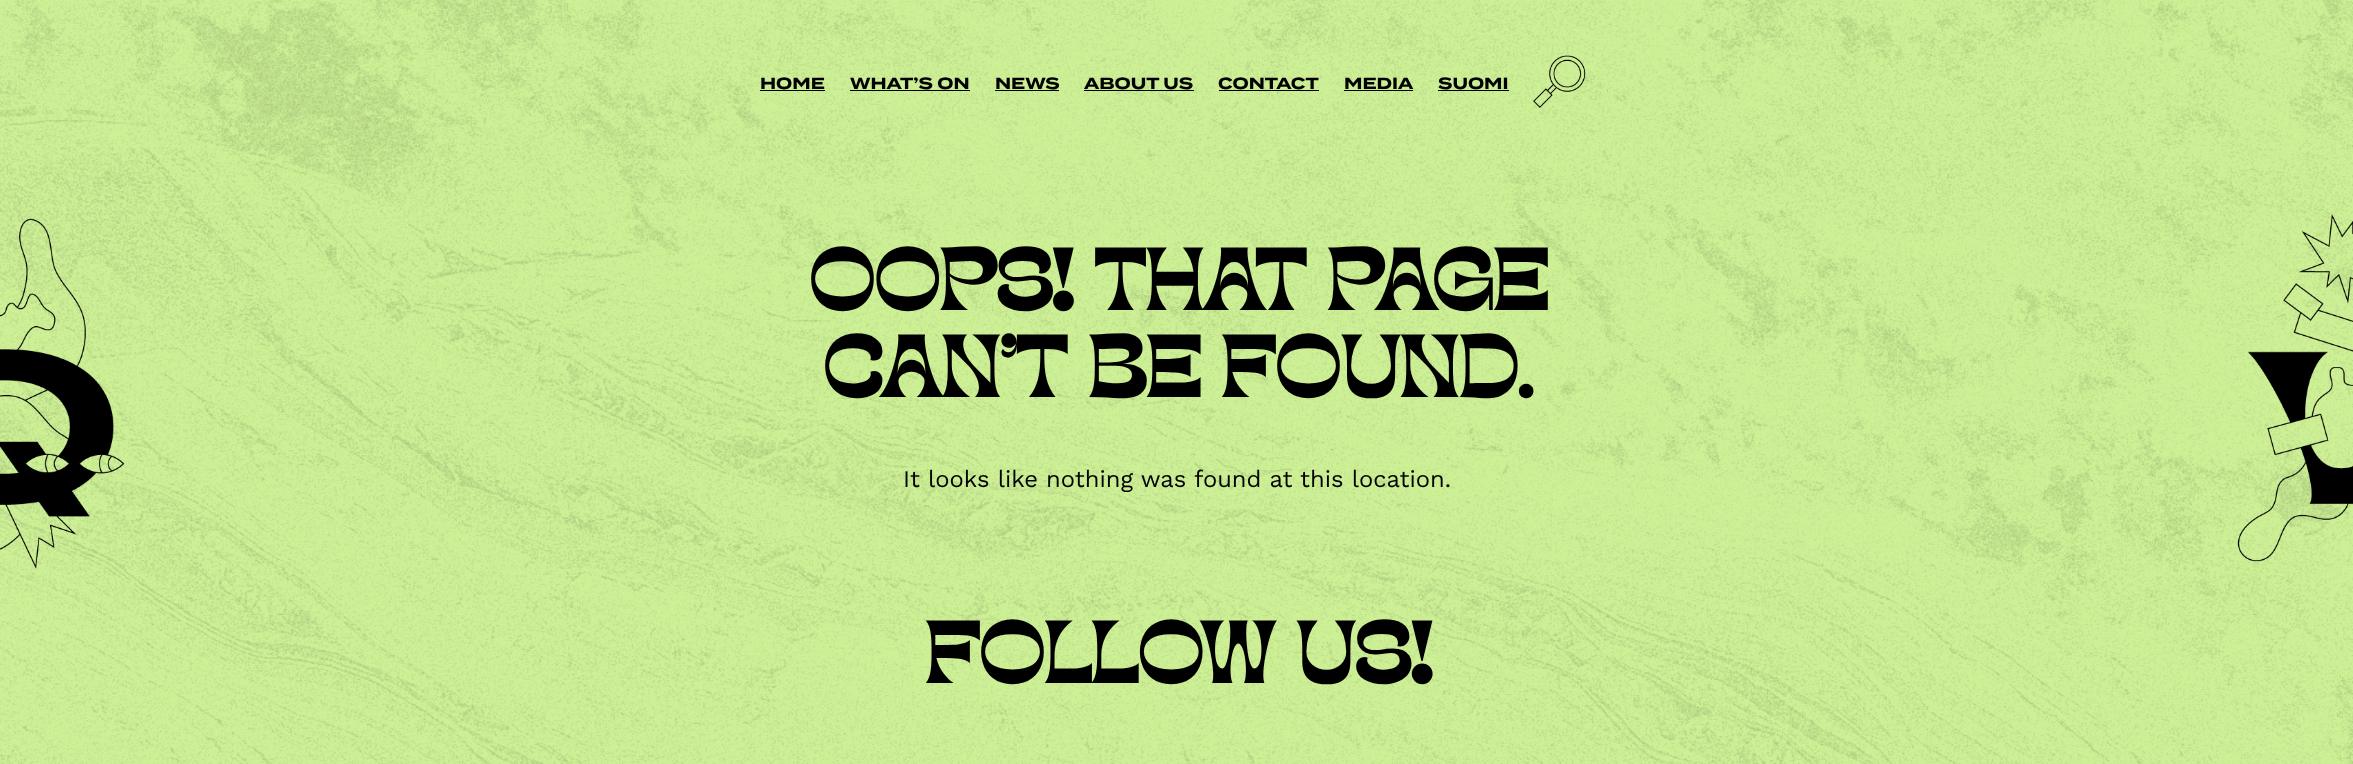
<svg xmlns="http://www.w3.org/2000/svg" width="2353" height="764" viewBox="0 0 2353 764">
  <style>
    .t1 { font: bold 16.25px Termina; fill: #000; }
    .t2 { font: 62.5px 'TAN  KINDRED'; letter-spacing: -3.75px; fill: #000; }
    .t3 { font: 23.75px Work Sans; fill: #000; }
  </style>
  <rect width="100%" height="100%" fill="#cdf096"/>
  <image x="0" y="0" width="2353" height="764" href="images/1.png"/>
  <text x="760" y="89" class="t1">HOME</text>
  <rect x="760" y="90" width="65" height="1" fill="#000"/>
  <text x="850" y="89" class="t1">WHAT’S ON</text>
  <rect x="850" y="90" width="120" height="1" fill="#000"/>
  <text x="995" y="89" class="t1">NEWS</text>
  <rect x="995" y="90" width="64" height="1" fill="#000"/>
  <text x="1084" y="89" class="t1">ABOUT US</text>
  <rect x="1084" y="90" width="110" height="1" fill="#000"/>
  <text x="1218" y="89" class="t1">CONTACT</text>
  <rect x="1219" y="90" width="100" height="1" fill="#000"/>
  <text x="1344" y="89" class="t1">MEDIA</text>
  <rect x="1344" y="90" width="69" height="1" fill="#000"/>
  <text x="1438" y="89" class="t1">SUOMI</text>
  <rect x="1438" y="90" width="71" height="1" fill="#000"/>
  <image x="1533" y="55" width="53" height="53" href="images/2.png"/>
  <text x="808" y="310" class="t2">OOPS! THAT PAGE</text>
  <text x="822" y="397" class="t2">CAN’T BE FOUND.</text>
  <text x="903" y="487" class="t3">It looks like nothing was found at this location.</text>
  <text x="924" y="683" class="t2">FOLLOW US!</text>
</svg>
